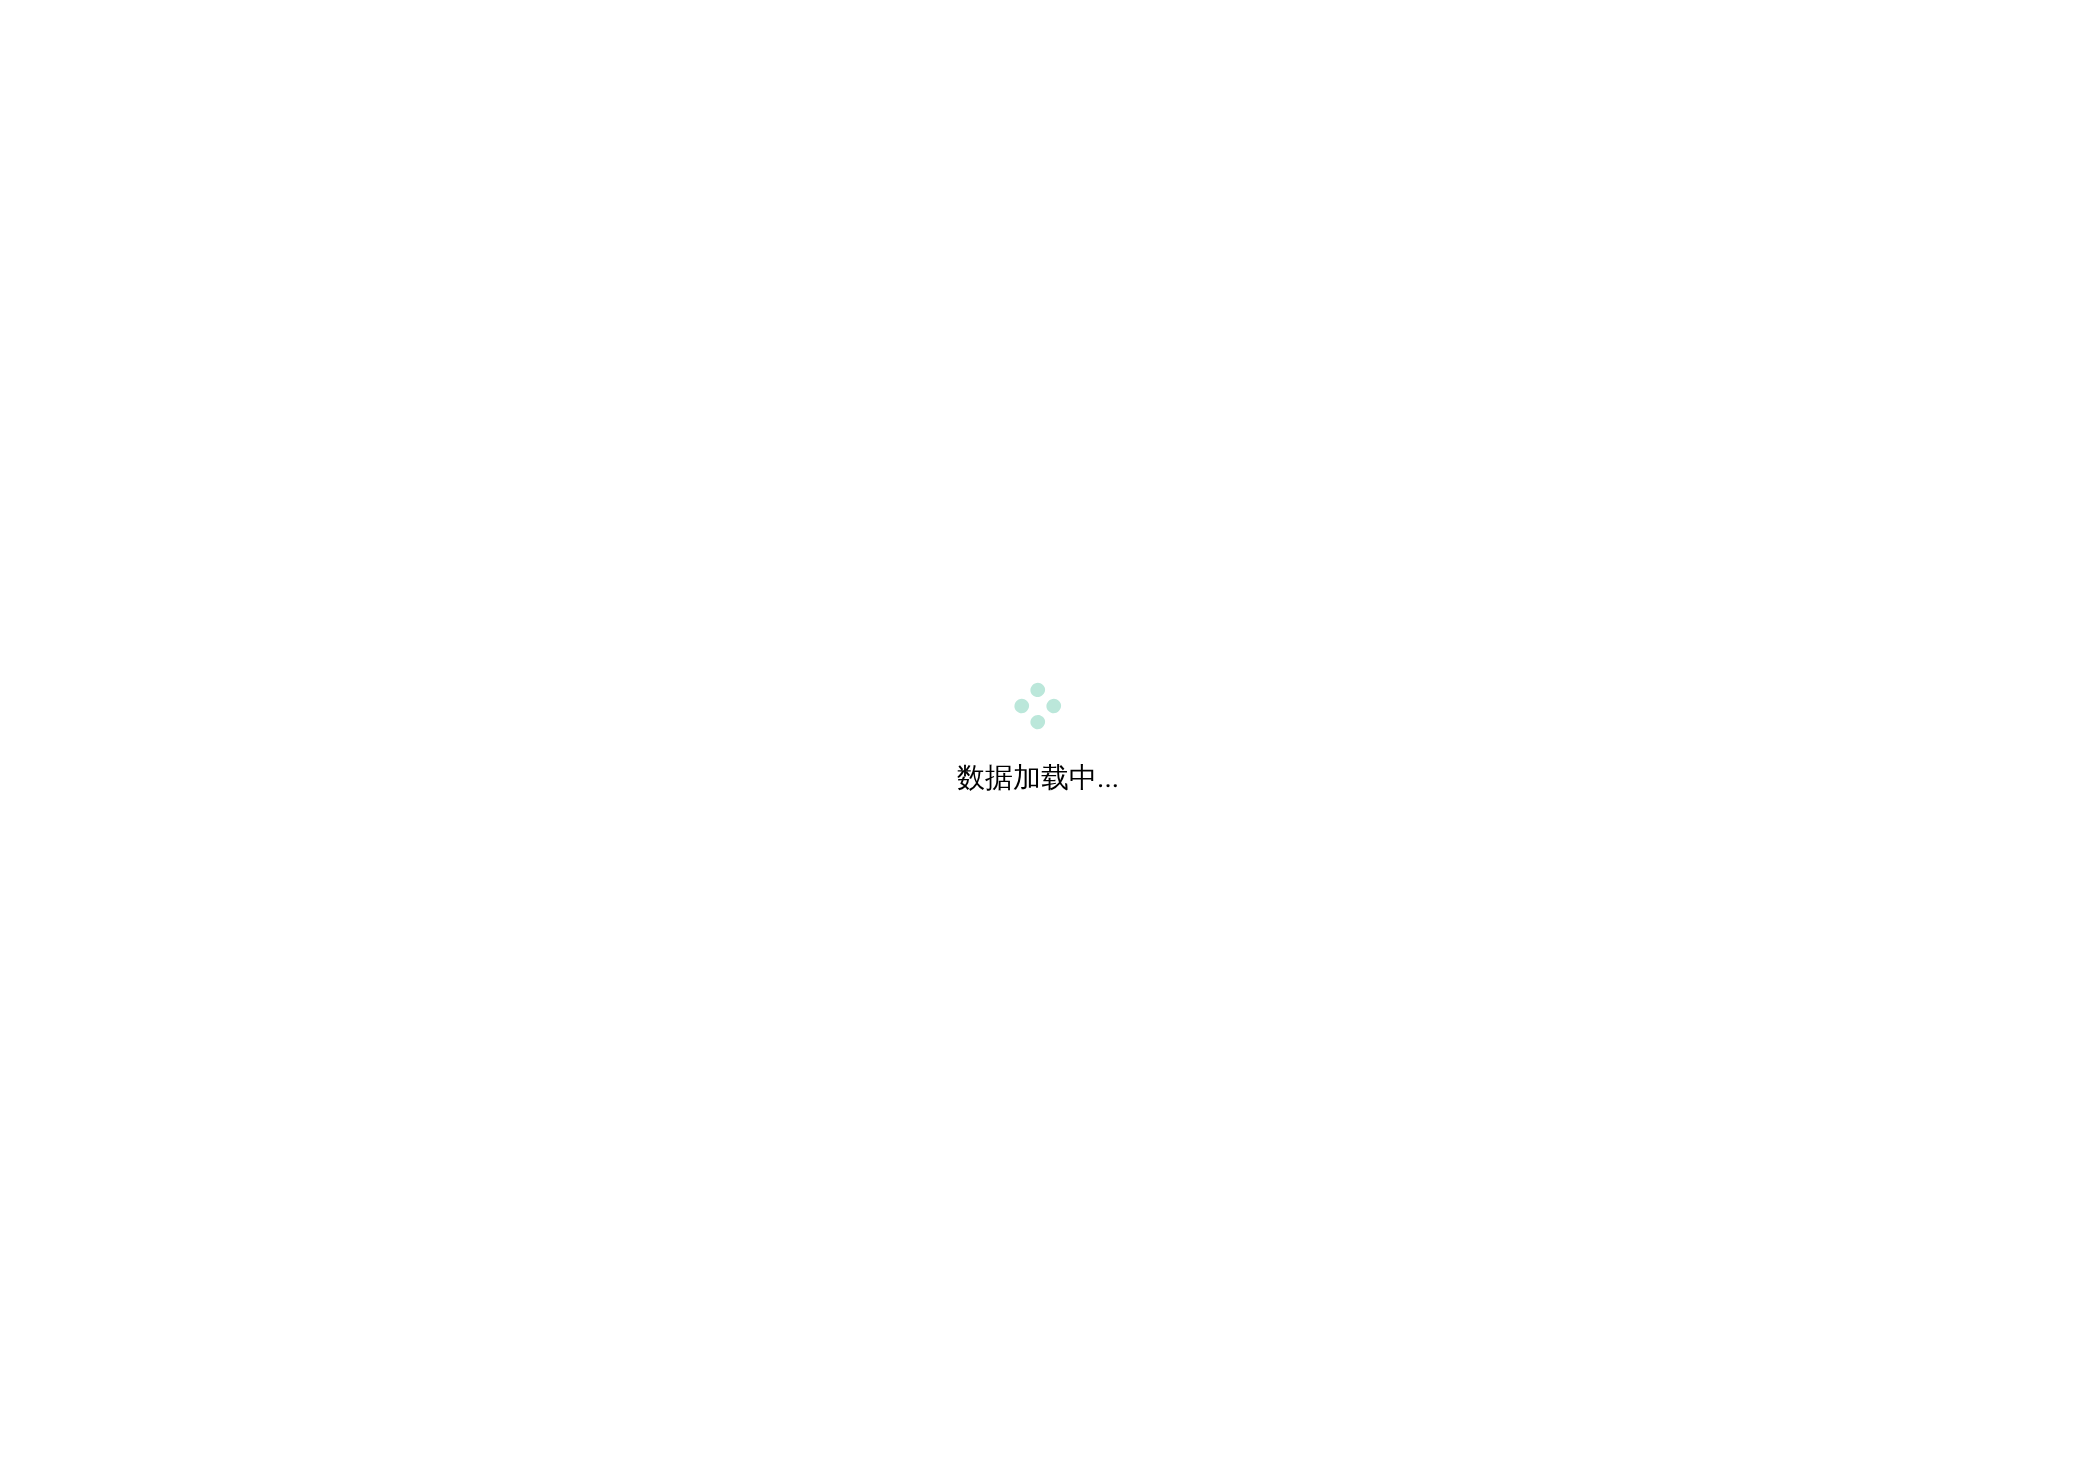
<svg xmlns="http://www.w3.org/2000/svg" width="2074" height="1484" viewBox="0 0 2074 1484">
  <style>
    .t1 { font: 500 28px WenQuanYi Zen Hei; fill: #000; }
    .t2 { font: 28px Roboto; fill: #000; }
  </style>
  <rect width="100%" height="100%" fill="#fff"/>
  <path d="M1043 685C1049.5 691.5 1039.5 701.5 1032.5 695C1026 688.5 1036 678 1043 685ZM1059 701C1065.5 707.5 1055.5 718 1048.5 711C1042 704.5 1052 694 1059 701ZM1043 717C1049.5 723.5 1039.5 734 1032.5 727C1026 720.5 1036 710.5 1043 717ZM1027 701C1033.5 707.5 1023.5 718 1016.5 711C1010 704.5 1020 694 1027 701Z" fill="#bbe7da"/>
  <text x="957" y="787" class="t1">数据加载中</text>
  <text x="1097" y="787" class="t2">...</text>
</svg>
